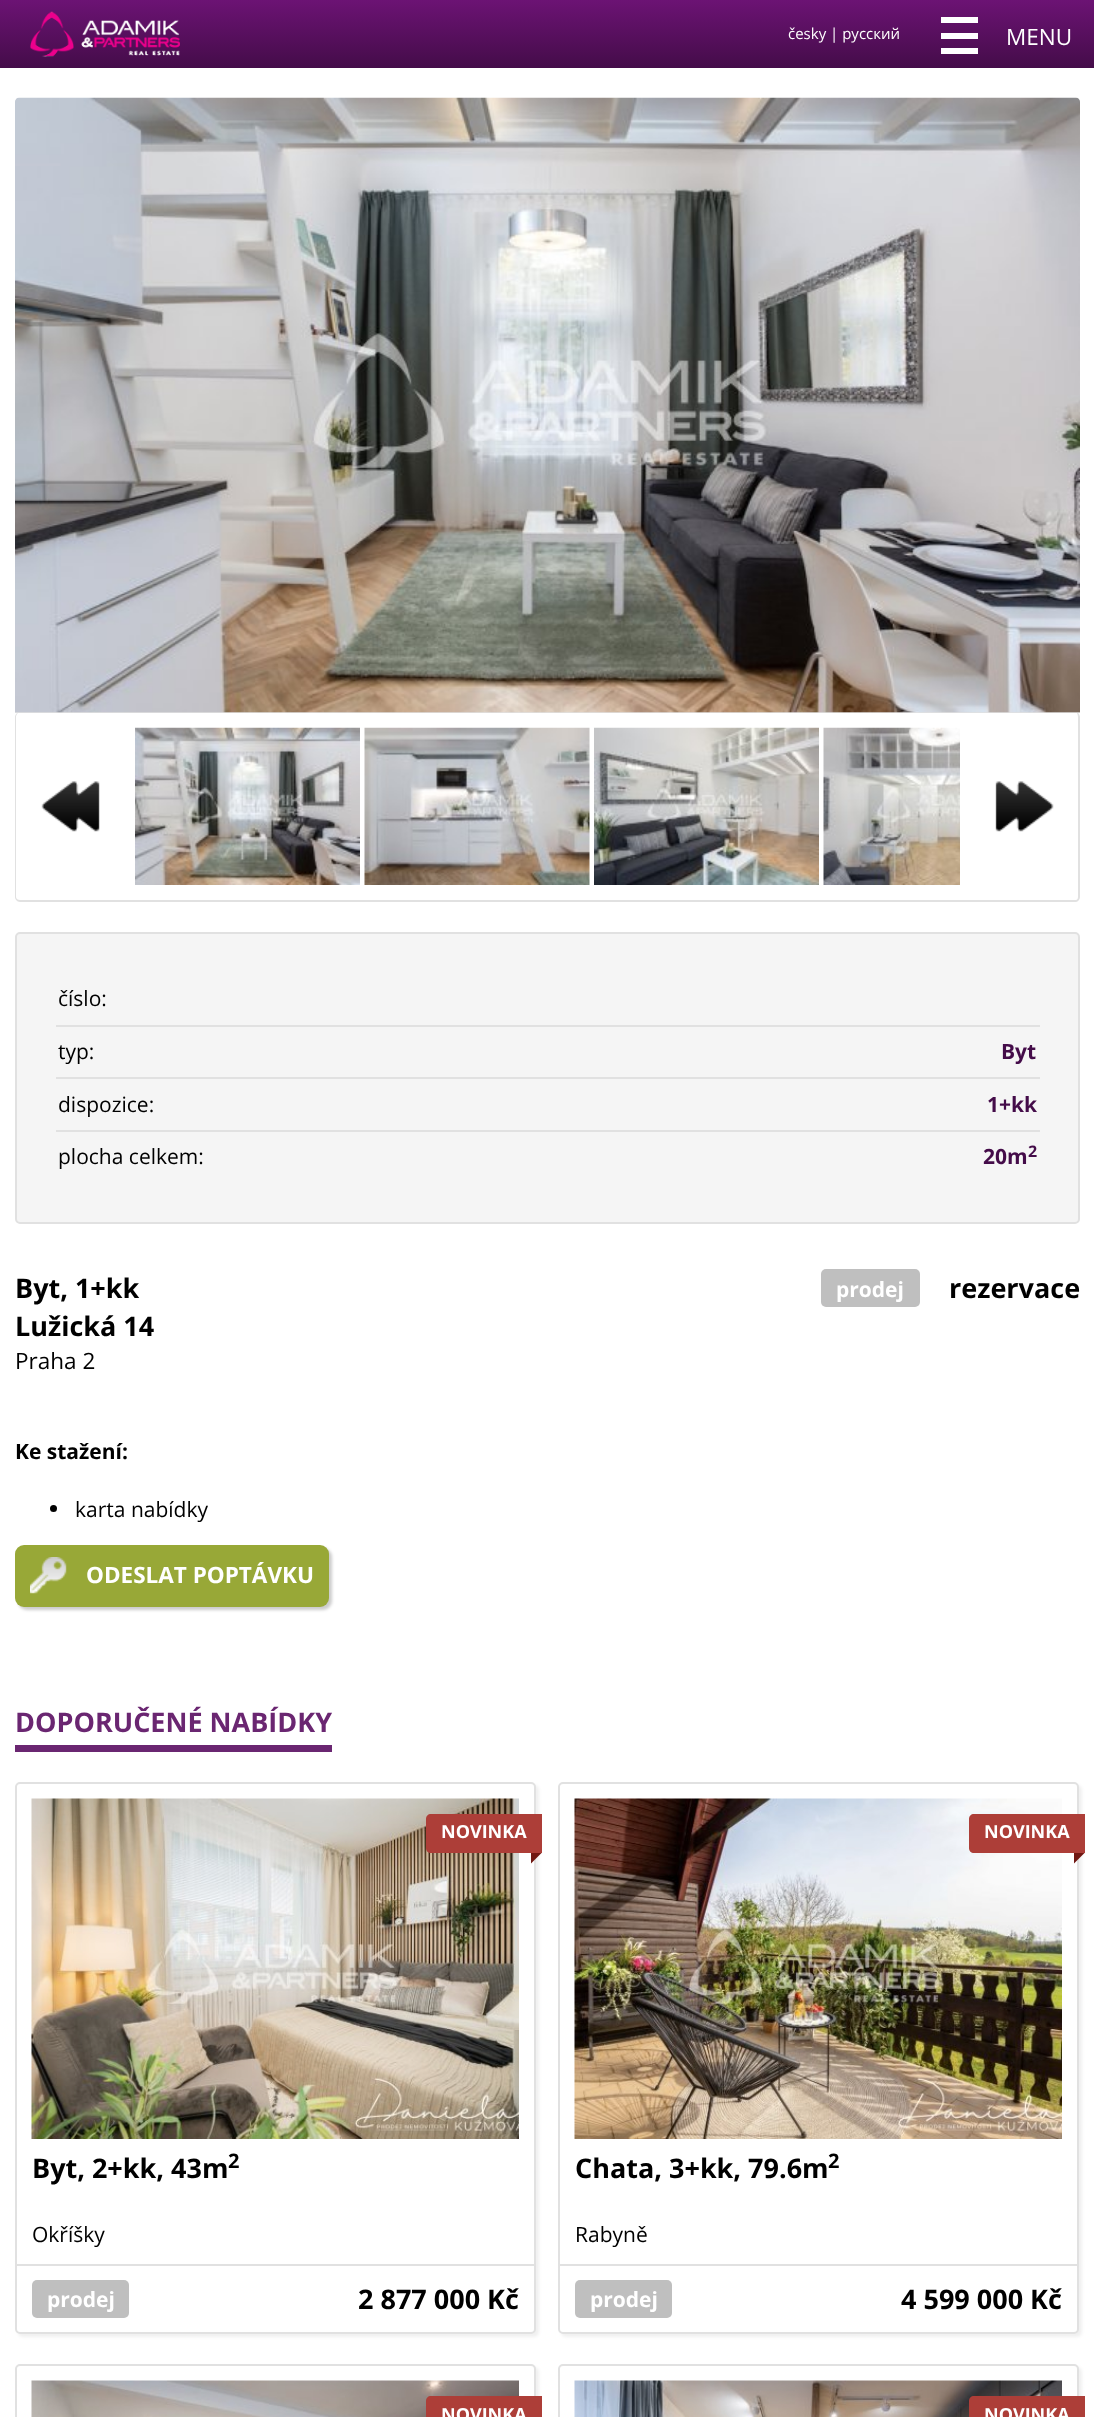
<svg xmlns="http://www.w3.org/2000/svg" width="1094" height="2417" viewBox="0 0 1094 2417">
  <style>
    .t1 { font: 15px Open Sans; fill: #fff; }
    .t2 { font: 22.5px Open Sans; fill: #fff; }
    .t3 { font: 21px Open Sans; fill: #000; }
    .t4 { font: bold 21px Open Sans; fill: #440c49; }
    .t5 { font: bold 16px Open Sans; fill: #440c49; }
    .t6 { font: bold 27px Open Sans; fill: #000; }
    .t7 { font: 22.5px Open Sans; fill: #000; }
    .t8 { font: bold 21px Open Sans; fill: #fff; }
    .t9 { font: bold 21px Open Sans; fill: #000; }
    .t10 { font: bold 22.5px Open Sans; fill: #fff; }
    .t11 { font: bold 27px Open Sans; fill: #6a2671; }
    .t12 { font: bold 18px Open Sans; fill: #fff; }
    .t13 { font: bold 20px Open Sans; fill: #000; }
  </style>
  <defs>
    <linearGradient id="g1" gradientUnits="userSpaceOnUse" x1="548" y1="0" x2="548" y2="68"><stop offset="0" stop-color="#6c1374"/><stop offset="1" stop-color="#440c49"/></linearGradient>
  </defs>
  <rect width="100%" height="100%" fill="#fff"/>
  <rect x="0" y="0" width="1094" height="68" fill="url(#g1)"/>
  <image x="30" y="11" width="150" height="46" href="images/1.png"/>
  <text x="788" y="39" class="t1">česky | русский</text>
  <rect x="941" y="17" width="37" height="6" fill="#fff"/>
  <rect x="941" y="48" width="37" height="6" fill="#fff"/>
  <rect x="941" y="33" width="37" height="6" fill="#fff"/>
  <text x="1006" y="45" class="t2">MENU</text>
  <path d="M20 98H1075C1078 98 1080 100 1080 103V713H15V103C15 100 17 98 20 98Z" fill="#e1e1e1"/>
  <path d="M20 712H1076C1078 712 1080 715 1080 717V897C1080 899 1078 902 1076 902H20C17 902 15 899 15 897V717C15 715 17 712 20 712ZM20 712H1076C1077 712 1078 715 1078 717V897C1078 899 1077 900 1076 900H20C18 900 16 899 16 897V717C16 715 18 712 20 712Z" fill="#e1e1e1" fill-rule="evenodd"/>
  <image x="15" y="97" width="1065" height="616" href="images/2.png"/>
  <image x="41" y="781" width="59" height="51" href="images/3.png"/>
  <image x="135" y="727" width="225" height="158" href="images/4.png"/>
  <image x="364" y="727" width="226" height="158" href="images/5.png"/>
  <image x="594" y="727" width="225" height="158" href="images/6.png"/>
  <image x="823" y="727" width="137" height="158" href="images/7.png"/>
  <image x="995" y="781" width="59" height="51" href="images/8.png"/>
  <rect x="16" y="933" width="1063" height="290" rx="4" fill="#f5f5f5" stroke="#e1e1e1" stroke-width="2"/>
  <rect x="56" y="1025" width="984" height="2" fill="#e1e1e1"/>
  <text x="58" y="1006" class="t3">číslo:</text>
  <rect x="56" y="1077" width="984" height="2" fill="#e1e1e1"/>
  <text x="58" y="1059" class="t3">typ:</text>
  <text x="1001" y="1059" class="t4">Byt</text>
  <rect x="56" y="1130" width="984" height="2" fill="#e1e1e1"/>
  <text x="58" y="1112" class="t3">dispozice:</text>
  <text x="987" y="1112" class="t4">1+kk</text>
  <text x="58" y="1164" class="t3">plocha celkem:</text>
  <text x="983" y="1164" class="t4">20m</text>
  <text x="1028" y="1157" class="t5">2</text>
  <text x="15" y="1298" class="t6">Byt, 1+kk</text>
  <text x="15" y="1336" class="t6">Lužická 14</text>
  <text x="15" y="1369" class="t7">Praha 2</text>
  <rect x="821" y="1269" width="99" height="38" rx="5" fill="#bfbfbf"/>
  <text x="836" y="1297" class="t8">prodej</text>
  <text x="949" y="1298" class="t6">rezervace</text>
  <text x="15" y="1459" class="t9">Ke stažení:</text>
  <circle cx="53.5" cy="1508.5" r="3.5" fill="#000"/>
  <text x="75" y="1517" class="t3">karta nabídky</text>
  <rect x="18" y="1548" width="314" height="62" rx="9" fill="#00000033" filter="blur(1.5px)"/>
  <rect x="15" y="1545" width="314" height="62" rx="9" fill="#98a837"/>
  <image x="30" y="1557" width="37" height="37" href="images/9.png"/>
  <text x="86" y="1583" class="t10">ODESLAT POPTÁVKU</text>
  <rect x="15" y="1745" width="317" height="7" fill="#6a2671"/>
  <text x="15" y="1732" class="t11">DOPORUČENÉ NABÍDKY</text>
  <rect x="18" y="1785" width="521" height="552" rx="5" fill="#0000000f" filter="blur(1.5px)"/>
  <rect x="16" y="1783" width="519" height="550" rx="4" fill="#fff" stroke="#e1e1e1" stroke-width="2"/>
  <rect x="17" y="2264" width="517" height="2" fill="#e1e1e1"/>
  <image x="31" y="1798" width="488" height="341" href="images/10.png"/>
  <path d="M431 1814H542V1853H431C428 1853 426 1851 426 1848V1819C426 1816 428 1814 431 1814Z" fill="#ad3e38"/>
  <text x="441" y="1838" class="t12">NOVINKA</text>
  <path d="M541.5 1853L531 1863.5V1853Z" fill="#701712"/>
  <text x="32" y="2178" class="t6">Byt, 2+kk, 43m</text>
  <text x="228" y="2168" class="t13">2</text>
  <text x="32" y="2242" class="t3">Okříšky</text>
  <rect x="32" y="2280" width="97" height="38" rx="5" fill="#bfbfbf"/>
  <text x="47" y="2307" class="t8">prodej</text>
  <text x="358" y="2309" class="t6">2 877 000 Kč</text>
  <rect x="561" y="1785" width="521" height="552" rx="5" fill="#0000000f" filter="blur(1.5px)"/>
  <rect x="559" y="1783" width="519" height="550" rx="4" fill="#fff" stroke="#e1e1e1" stroke-width="2"/>
  <rect x="560" y="2264" width="517" height="2" fill="#e1e1e1"/>
  <image x="574" y="1798" width="488" height="341" href="images/11.png"/>
  <path d="M974 1814H1085V1853H974C971 1853 969 1851 969 1848V1819C969 1816 971 1814 974 1814Z" fill="#ad3e38"/>
  <text x="984" y="1838" class="t12">NOVINKA</text>
  <path d="M1084.5 1853L1074 1863.5V1853Z" fill="#701712"/>
  <text x="575" y="2178" class="t6">Chata, 3+kk, 79.6m</text>
  <text x="828" y="2168" class="t13">2</text>
  <text x="575" y="2242" class="t3">Rabyně</text>
  <rect x="575" y="2280" width="97" height="38" rx="5" fill="#bfbfbf"/>
  <text x="590" y="2307" class="t8">prodej</text>
  <text x="901" y="2309" class="t6">4 599 000 Kč</text>
  <rect x="18" y="2367" width="521" height="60" rx="5" fill="#0000000f" filter="blur(1.5px)"/>
  <rect x="16" y="2365" width="519" height="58" rx="4" fill="#fff" stroke="#e1e1e1" stroke-width="2"/>
  <image x="31" y="2380" width="488" height="37" href="images/12.png"/>
  <path d="M431 2396H542V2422H431C428 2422 426 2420 426 2417V2401C426 2398 428 2396 431 2396Z" fill="#ad3e38"/>
  <text x="441" y="2421" class="t12">NOVINKA</text>
  <rect x="561" y="2367" width="521" height="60" rx="5" fill="#0000000f" filter="blur(1.5px)"/>
  <rect x="559" y="2365" width="519" height="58" rx="4" fill="#fff" stroke="#e1e1e1" stroke-width="2"/>
  <image x="574" y="2380" width="488" height="37" href="images/13.png"/>
  <path d="M974 2396H1085V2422H974C971 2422 969 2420 969 2417V2401C969 2398 971 2396 974 2396Z" fill="#ad3e38"/>
  <text x="984" y="2421" class="t12">NOVINKA</text>
</svg>
